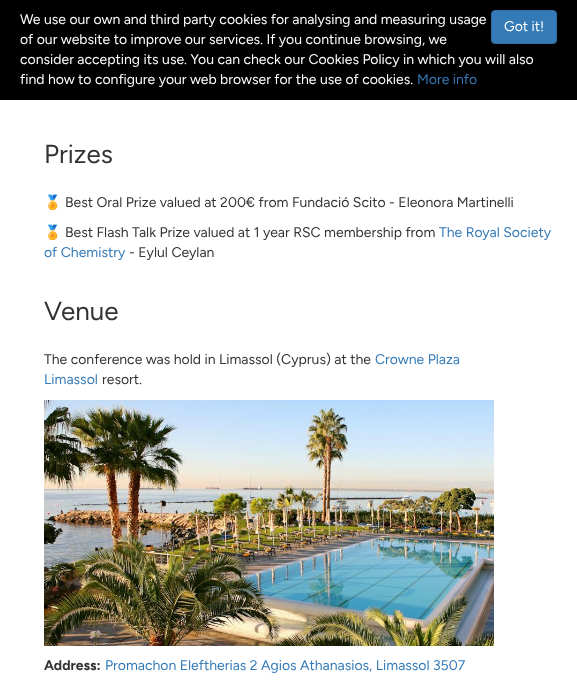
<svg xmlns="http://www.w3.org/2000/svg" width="577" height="696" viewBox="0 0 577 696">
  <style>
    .t1 { font: 14px Figtree; fill: #fff; }
    .t2 { font: 14px Figtree; fill: #337ab7; }
    .t3 { font: 26px Figtree; fill: #333; }
    .t4 { font: bold 14px Noto Color Emoji; fill: #333; }
    .t5 { font: 14px Figtree; fill: #333; }
    .t6 { font: bold 14px Figtree; fill: #333; }
  </style>
  <rect width="100%" height="100%" fill="#fff"/>
  <rect x="0" y="0" width="577" height="100" fill="#000"/>
  <text x="20" y="24" class="t1">We use our own and third party cookies for analysing and measuring usage</text>
  <rect x="491.5" y="10.5" width="65" height="33" rx="3.5" fill="#337ab7" stroke="#2e6da4"/>
  <text x="504" y="31" class="t1">Got it!</text>
  <text x="20" y="44" class="t1">of our website to improve our services. If you continue browsing, we</text>
  <text x="20" y="64" class="t1">consider accepting its use. You can check our Cookies Policy in which you will also</text>
  <text x="20" y="84" class="t1">find how to configure your web browser for the use of cookies.</text>
  <text x="417" y="84" class="t2">More info</text>
  <text x="44" y="163" class="t3">Prizes</text>
  <text x="44" y="207" class="t4">🏅</text>
  <text x="65" y="207" class="t5">Best Oral Prize valued at 200€ from Fundació Scito - Eleonora Martinelli</text>
  <text x="44" y="237" class="t4">🏅</text>
  <text x="65" y="237" class="t5">Best Flash Talk Prize valued at 1 year RSC membership from</text>
  <text x="439" y="237" class="t2">The Royal Society</text>
  <text x="44" y="257" class="t2">of Chemistry</text>
  <text x="129" y="257" class="t5">- Eylul Ceylan</text>
  <text x="44" y="320" class="t3">Venue</text>
  <text x="44" y="364" class="t5">The conference was hold in Limassol (Cyprus) at the</text>
  <text x="375" y="364" class="t2">Crowne Plaza</text>
  <text x="44" y="384" class="t2">Limassol</text>
  <text x="102" y="384" class="t5">resort.</text>
  <image x="44" y="400" width="450" height="246" href="images/1.png"/>
  <text x="44" y="670" class="t6">Address:</text>
  <text x="105" y="670" class="t2">Promachon Eleftherias 2 Agios Athanasios, Limassol 3507</text>
</svg>
